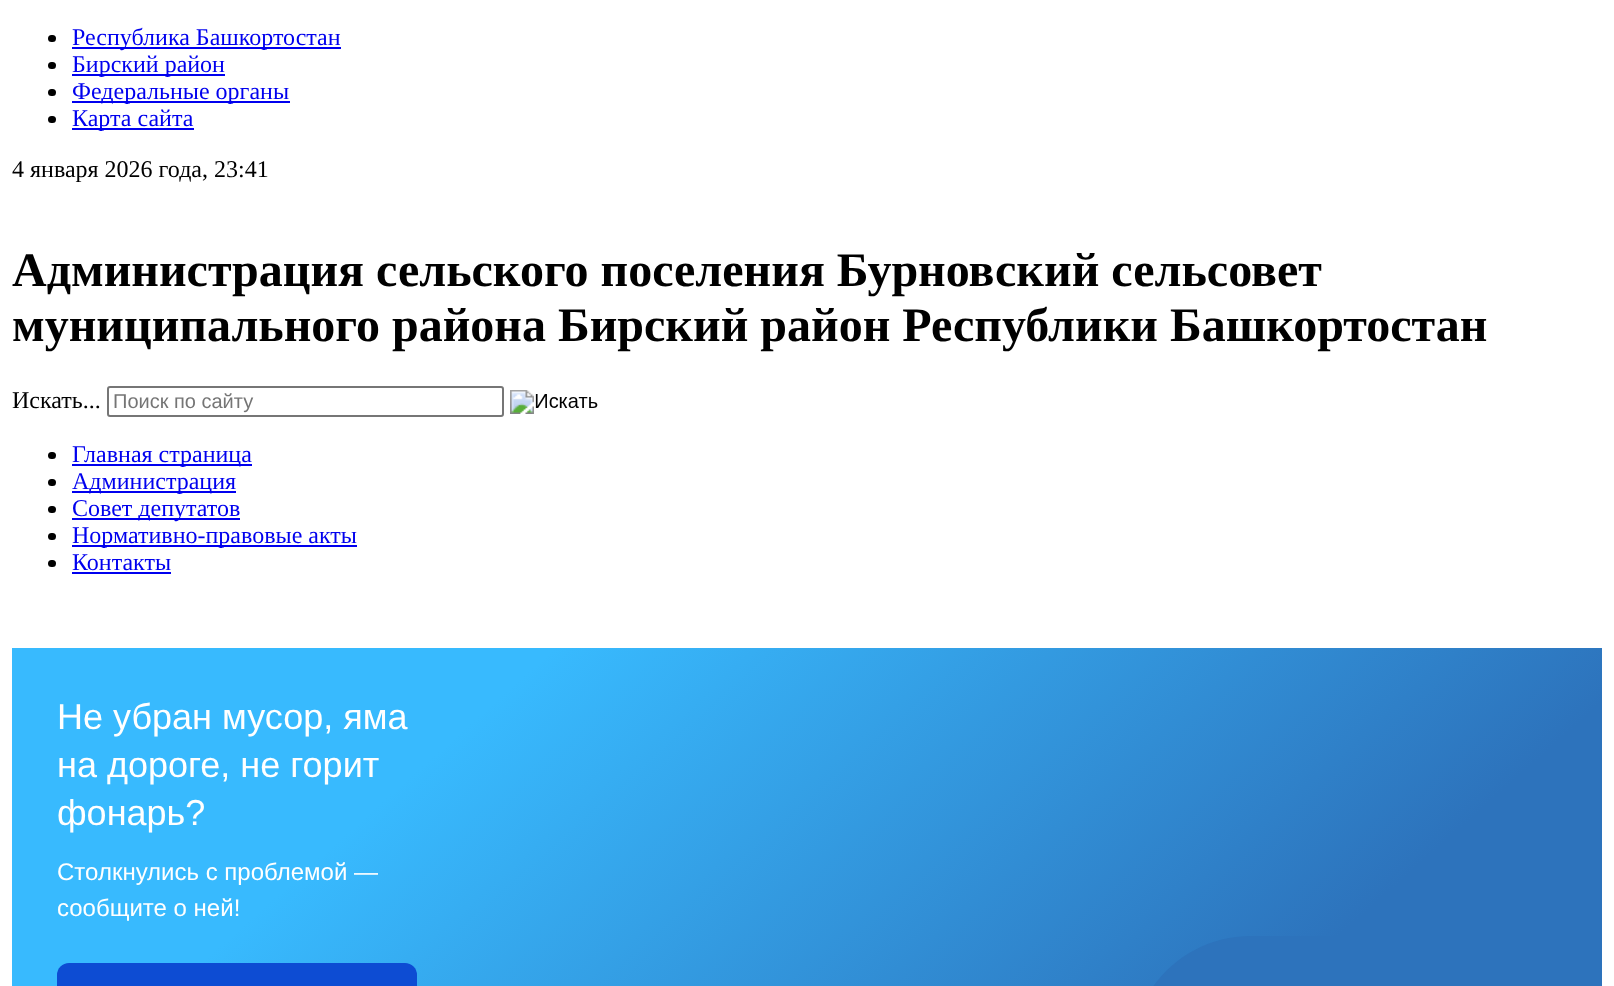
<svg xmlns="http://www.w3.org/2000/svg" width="1614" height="986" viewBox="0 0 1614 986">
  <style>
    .t1 { font: 24px Liberation Serif; fill: #00e; }
    .t2 { font: 24px Liberation Serif; fill: #000; }
    .t3 { font: bold 48px Liberation Serif; fill: #000; }
    .t4 { font: 20px Liberation Sans; fill: #757575; }
    .t5 { font: 36px Liberation Sans; fill: #fff; }
    .t6 { font: 24px Liberation Sans; fill: #fff; }
  </style>
  <defs>
    <linearGradient id="g1" gradientUnits="userSpaceOnUse" x1="346" y1="351" x2="1268" y2="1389"><stop offset="0.26" stop-color="#38bafe"/><stop offset="0.79" stop-color="#2d73bc"/></linearGradient>
  </defs>
  <rect width="100%" height="100%" fill="#fff"/>
  <rect x="48" y="35" width="8" height="7" rx="3.5" fill="#000"/>
  <rect x="72" y="47" width="269" height="2" fill="#00e"/>
  <text x="72" y="45" class="t1">Республика Башкортостан</text>
  <rect x="48" y="62" width="8" height="7" rx="3.5" fill="#000"/>
  <rect x="72" y="74" width="153" height="2" fill="#00e"/>
  <text x="72" y="72" class="t1">Бирский район</text>
  <rect x="48" y="89" width="8" height="7" rx="3.5" fill="#000"/>
  <rect x="72" y="101" width="218" height="2" fill="#00e"/>
  <text x="72" y="99" class="t1">Федеральные органы</text>
  <rect x="48" y="116" width="8" height="7" rx="3.5" fill="#000"/>
  <rect x="72" y="128" width="122" height="2" fill="#00e"/>
  <text x="72" y="126" class="t1">Карта сайта</text>
  <text x="12" y="177" class="t2">4 января 2026 года, 23:41</text>
  <text x="12" y="286" class="t3">Администрация сельского поселения Бурновский сельсовет</text>
  <text x="12" y="341" class="t3">муниципального района Бирский район Республики Башкортостан</text>
  <text x="12" y="408" class="t2">Искать...</text>
  <rect x="108" y="387" width="395" height="29" rx="2" fill="none" stroke="#767676" stroke-width="2"/>
  <text x="113" y="408" class="t4">Поиск по сайту</text>
  <image x="510" y="390" width="88" height="24" href="images/1.png"/>
  <rect x="48" y="452" width="8" height="7" rx="3.5" fill="#000"/>
  <rect x="72" y="464" width="180" height="2" fill="#00e"/>
  <text x="72" y="462" class="t1">Главная страница</text>
  <rect x="48" y="479" width="8" height="7" rx="3.5" fill="#000"/>
  <rect x="72" y="491" width="164" height="2" fill="#00e"/>
  <text x="72" y="489" class="t1">Администрация</text>
  <rect x="48" y="506" width="8" height="7" rx="3.5" fill="#000"/>
  <rect x="72" y="518" width="168" height="2" fill="#00e"/>
  <text x="72" y="516" class="t1">Совет депутатов</text>
  <rect x="48" y="533" width="8" height="7" rx="3.5" fill="#000"/>
  <rect x="72" y="545" width="285" height="2" fill="#00e"/>
  <text x="72" y="543" class="t1">Нормативно-правовые акты</text>
  <rect x="48" y="560" width="8" height="7" rx="3.5" fill="#000"/>
  <text x="72" y="570" class="t1">Контакты</text>
  <rect x="72" y="572" width="99" height="2" fill="#00e"/>
  <rect x="12" y="648" width="1590" height="338" fill="url(#g1)"/>
  <text x="57" y="729" class="t5">Не убран мусор, яма</text>
  <text x="57" y="777" class="t5">на дороге, не горит</text>
  <text x="57" y="825" class="t5">фонарь?</text>
  <text x="57" y="880" class="t6">Столкнулись с проблемой —</text>
  <text x="57" y="916" class="t6">сообщите о ней!</text>
  <rect x="57" y="963" width="360" height="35" rx="12" fill="#0d4cd3"/>
  <path d="M1251 936H1602V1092H1131V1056C1131 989.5 1184.5 936 1251 936Z" fill="#2d73bc"/>
</svg>
